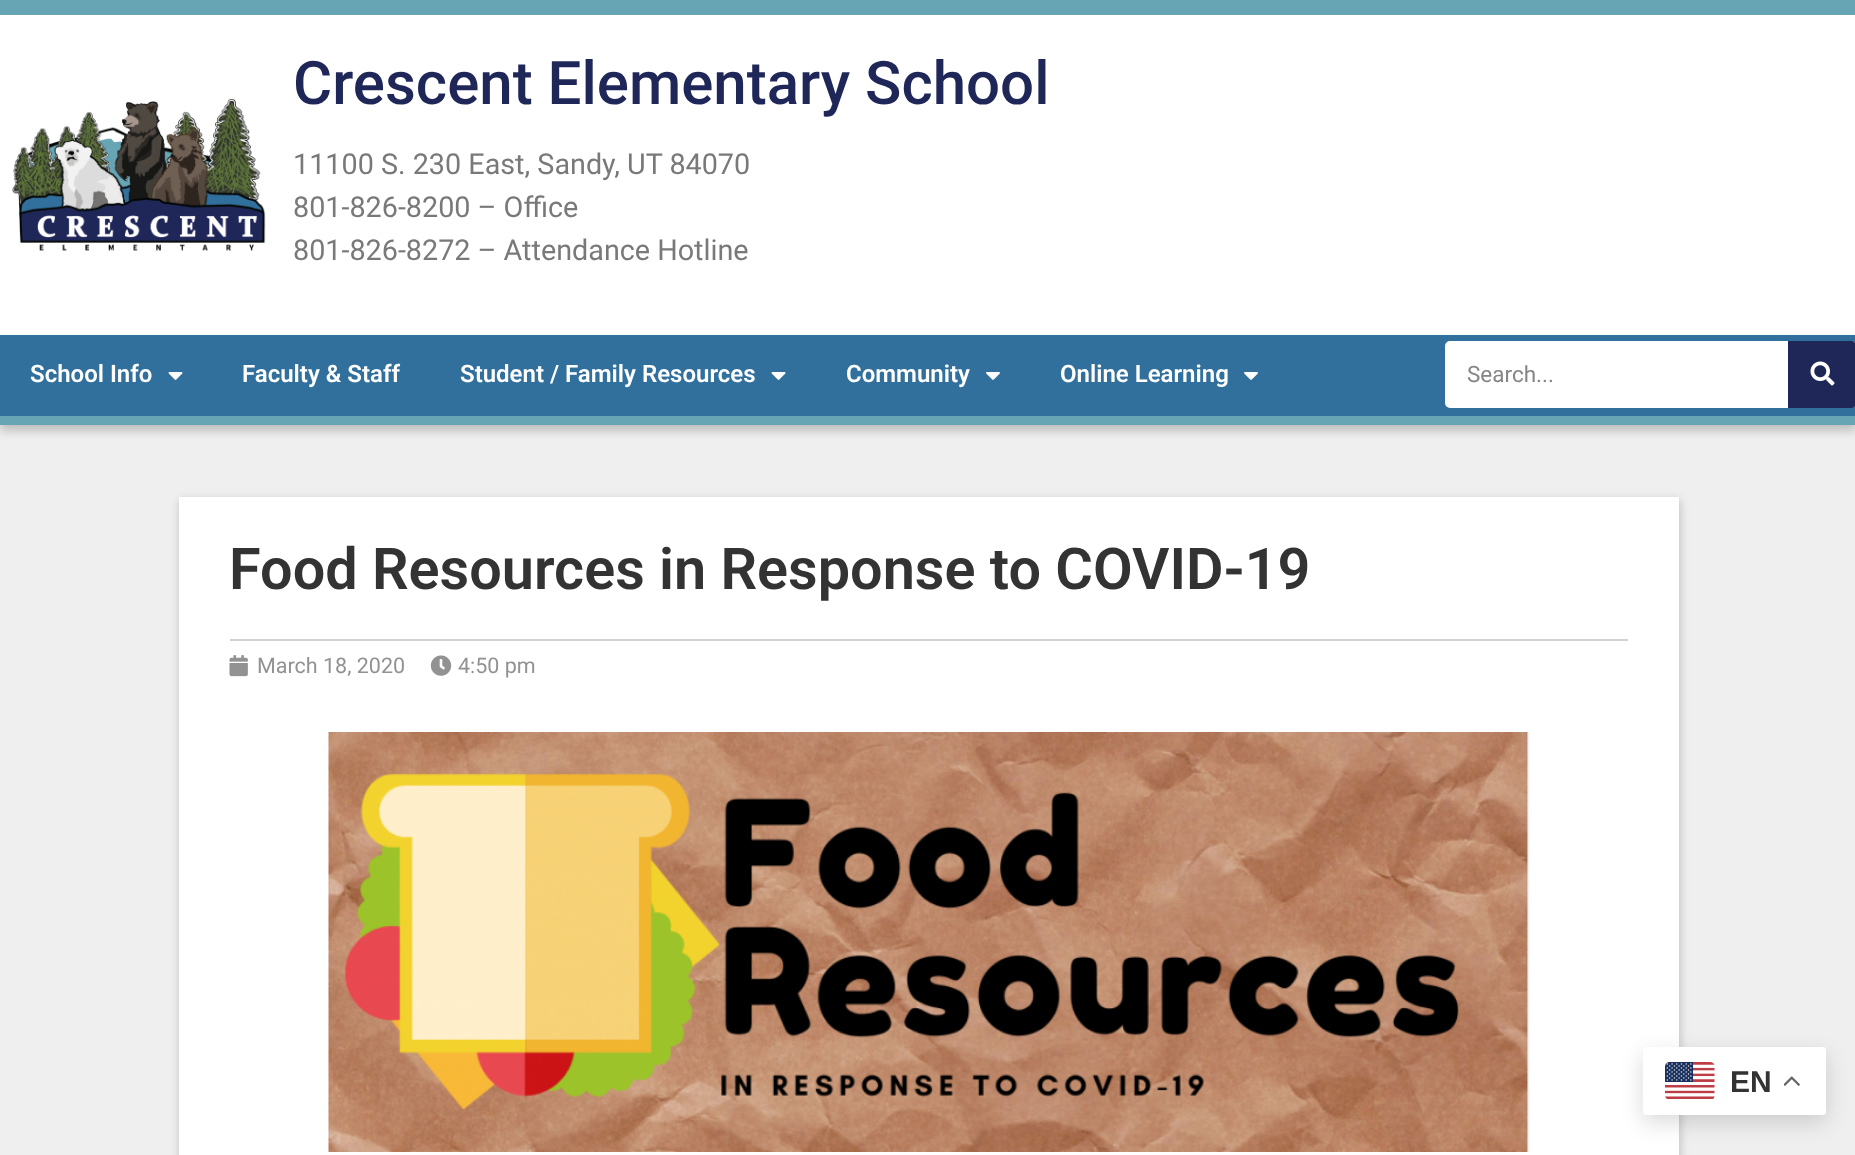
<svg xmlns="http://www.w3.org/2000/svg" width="1855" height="1155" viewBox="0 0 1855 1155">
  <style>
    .t1 { font: 500 60px Roboto; fill: #1f2758; }
    .t2 { font: 28.75px Roboto; fill: #797979; }
    .t3 { font: 600 24px Roboto; fill: #fff; }
    .t4 { font: 22.5px Roboto; fill: #858585; }
    .t5 { font: 600 57.6px Roboto; fill: #333; }
    .t6 { font: 21.5px Roboto; fill: #929292; }
    .t7 { font: bold 30px Liberation Sans; fill: #333; }
  </style>
  <rect width="100%" height="100%" fill="#efefef"/>
  <rect x="0" y="341" width="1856" height="90" fill="#00000033" filter="blur(5px)"/>
  <rect x="0" y="15" width="1855" height="320" fill="#fff"/>
  <rect x="0" y="0" width="1855" height="15" fill="#67a5b5"/>
  <image x="12" y="99" width="254" height="152" href="images/1.png"/>
  <text x="293" y="104" class="t1">Crescent Elementary School</text>
  <text x="293" y="174" class="t2">11100 S. 230 East, Sandy, UT 84070</text>
  <text x="293" y="217" class="t2">801-826-8200 – Office</text>
  <text x="293" y="260" class="t2">801-826-8272 – Attendance Hotline</text>
  <rect x="0" y="335" width="1855" height="81" fill="#31709d"/>
  <rect x="0" y="416" width="1855" height="9" fill="#67a5b5"/>
  <text x="30" y="382" class="t3">School Info</text>
  <image x="168" y="372" width="15" height="8" href="images/2.png"/>
  <text x="242" y="382" class="t3">Faculty &amp; Staff</text>
  <text x="460" y="382" class="t3">Student / Family Resources</text>
  <image x="771" y="372" width="15" height="8" href="images/2.png"/>
  <text x="846" y="382" class="t3">Community</text>
  <image x="986" y="372" width="14" height="8" href="images/3.png"/>
  <text x="1060" y="382" class="t3">Online Learning</text>
  <image x="1244" y="372" width="14" height="8" href="images/3.png"/>
  <rect x="1445" y="341" width="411" height="67" rx="5" fill="#fff"/>
  <text x="1467" y="382" class="t4">Search...</text>
  <path d="M1788 341H1851C1854 341 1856 343 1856 346V403C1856 406 1854 408 1851 408H1788Z" fill="#1f2758"/>
  <image x="1810" y="361" width="25" height="25" href="images/4.png"/>
  <rect x="180" y="500" width="1500" height="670" fill="#00000033" filter="blur(5px)"/>
  <rect x="179" y="497" width="1500" height="658" fill="#fff"/>
  <text x="229" y="589" class="t5">Food Resources in Response to COVID-19</text>
  <rect x="230" y="639" width="1398" height="2" fill="#d2d2d2"/>
  <image x="229" y="655" width="19" height="22" href="images/5.png"/>
  <text x="257" y="673" class="t6">March 18, 2020</text>
  <image x="430" y="655" width="22" height="21" href="images/6.png"/>
  <text x="458" y="673" class="t6">4:50 pm</text>
  <image x="328" y="732" width="1201" height="420" href="images/7.png"/>
  <rect x="1643" y="1055" width="183" height="67" rx="3" fill="#00000026" filter="blur(11px)"/>
  <rect x="1643" y="1047" width="183" height="68" rx="3" fill="#fff"/>
  <image x="1665" y="1062" width="50" height="37" href="images/8.png"/>
  <text x="1730" y="1092" class="t7">EN</text>
  <image x="1784" y="1076" width="16" height="10" href="images/9.png"/>
</svg>
